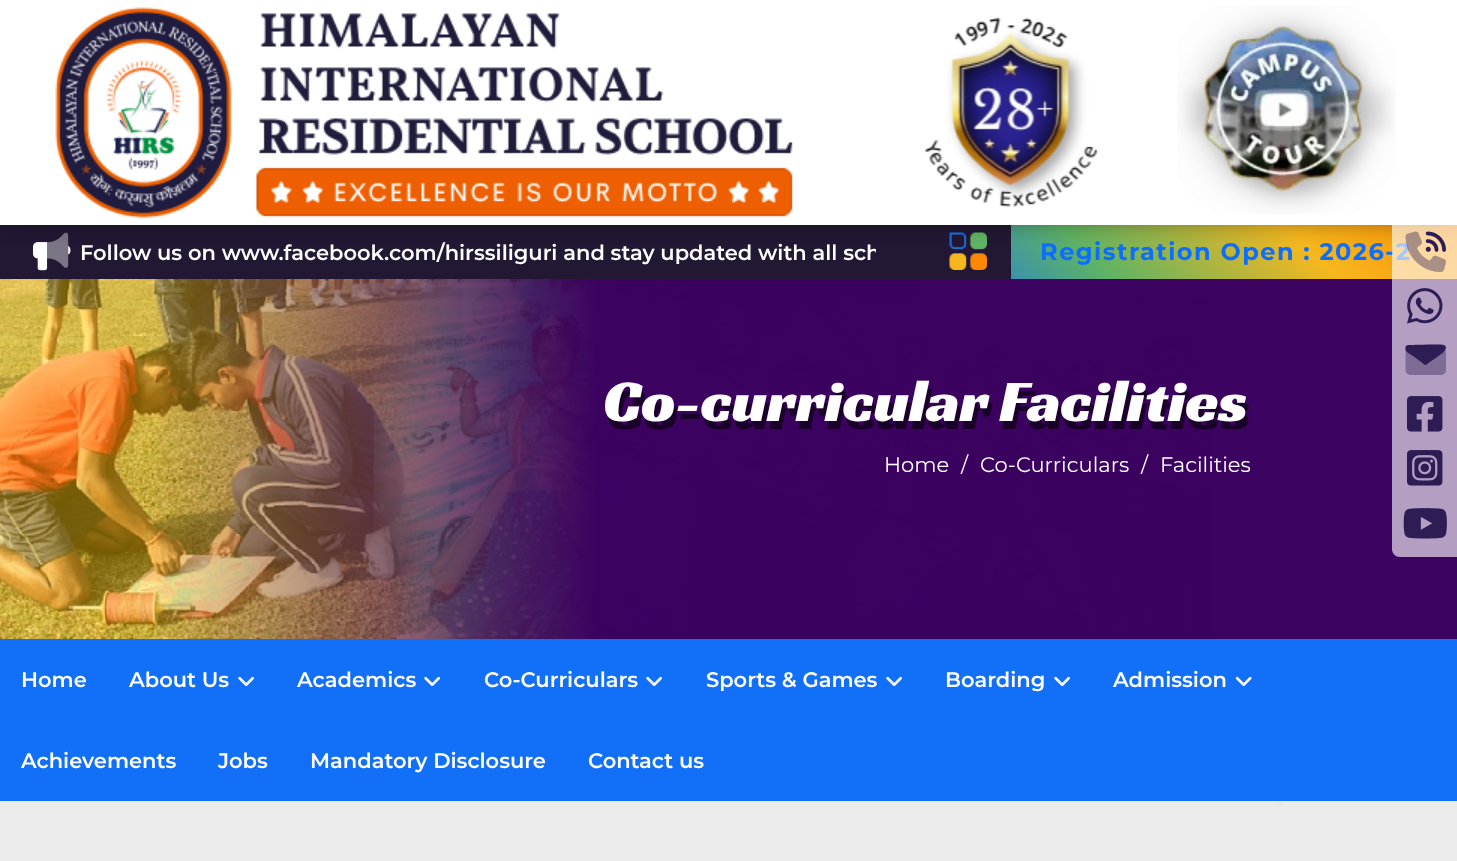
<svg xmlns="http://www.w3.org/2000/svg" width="1457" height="861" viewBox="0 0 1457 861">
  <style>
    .t1 { font: 600 21px Montserrat; fill: #fff; }
    .t2 { font: bold 24px Montserrat; letter-spacing: 1.5px; fill: #0d6efd; }
    .t3 { font: 60px Racing Sans One; fill: #190129; }
    .t4 { font: 60px Racing Sans One; fill: #fff; }
    .t5 { font: 21px Montserrat; fill: #fff; }
  </style>
  <defs>
    <linearGradient id="g1" gradientUnits="userSpaceOnUse" x1="1306" y1="682" x2="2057" y2="-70"><stop offset="0" stop-color="#1170f7"/><stop offset="0.14" stop-color="#5fb364"/><stop offset="0.29" stop-color="#f6b71e"/><stop offset="0.43" stop-color="#ff8700"/><stop offset="0.57" stop-color="#1170f7"/><stop offset="0.71" stop-color="#5fb364"/><stop offset="0.86" stop-color="#f6b71e"/><stop offset="1" stop-color="#ff8700"/></linearGradient>
    <clipPath id="clip1"><rect x="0" y="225" width="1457" height="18"/></clipPath>
    <clipPath id="clip2"><rect x="80" y="240" width="796" height="30"/></clipPath>
    <linearGradient id="g2" gradientUnits="userSpaceOnUse" x1="0" y1="459" x2="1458" y2="459"><stop offset="0.1" stop-color="#3a0060" stop-opacity="0"/><stop offset="0.41" stop-color="#3a0060" stop-opacity="0.99"/></linearGradient>
  </defs>
  <rect width="100%" height="100%" fill="#fff"/>
  <rect x="1209" y="279" width="248" height="360" fill="#ffe991"/>
  <rect x="0" y="225" width="1011" height="54" fill="#231834"/>
  <image x="33" y="242" width="38" height="29" href="images/5.png"/>
  <image x="47" y="232" width="22" height="36" href="images/4.png"/>
  <rect x="1011" y="225" width="446" height="54" fill="url(#g1)"/>
  <image x="949" y="232" width="38" height="38" href="images/6.png"/>
  <g clip-path="url(#clip1)">
    <rect x="0" y="-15" width="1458" height="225" fill="#000" filter="blur(16px)"/>
  </g>
  <image x="55" y="7" width="738" height="212" href="images/1.png"/>
  <image x="924" y="17" width="174" height="191" href="images/2.png"/>
  <image x="1177" y="5" width="219" height="209" href="images/3.png"/>
  <g clip-path="url(#clip2)">
    <text x="80" y="260" class="t1">Follow us on www.facebook.com/hirssiliguri and stay updated with all sch</text>
  </g>
  <text x="1040" y="260" class="t2">Registration Open : 2026-2</text>
  <image x="0" y="279" width="1209" height="360" href="images/14.png"/>
  <rect x="156" y="279" width="1301" height="360" fill="url(#g2)"/>
  <path d="M1400 216H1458V557H1400C1395.5 557 1392 553.5 1392 549V224C1392 219.5 1395.5 216 1400 216Z" fill="#ffffff9e"/>
  <image x="1425" y="231" width="21" height="21" href="images/8.png"/>
  <image x="1405" y="231" width="41" height="41" href="images/7.png"/>
  <image x="1407" y="288" width="36" height="36" href="images/9.png"/>
  <path d="M1409 345C1408 345 1407 345 1406 346C1403 351 1410 354 1413 356L1421 362C1426 366 1425 366 1430 362L1436 358C1437 357 1451 349 1444 345C1441 344 1414 345 1409 345Z" fill="#2d1d54"/>
  <image x="1405" y="349" width="41" height="26" href="images/10.png"/>
  <image x="1407" y="396" width="36" height="36" href="images/11.png"/>
  <image x="1407" y="450" width="36" height="36" href="images/12.png"/>
  <image x="1403" y="508" width="44" height="31" href="images/13.png"/>
  <text x="606" y="429" class="t3">Co-curricular Facilities</text>
  <text x="603" y="421" class="t4">Co-curricular Facilities</text>
  <text x="884" y="472" class="t5">Home</text>
  <text x="961" y="472" class="t5">/</text>
  <text x="980" y="472" class="t5">Co-Curriculars</text>
  <text x="1141" y="472" class="t5">/</text>
  <text x="1160" y="472" class="t5">Facilities</text>
  <rect x="0" y="639" width="1457" height="162" fill="#1170f7"/>
  <text x="21" y="687" class="t1">Home</text>
  <text x="129" y="687" class="t1">About Us</text>
  <image x="238" y="676" width="16" height="10" href="images/15.png"/>
  <text x="297" y="687" class="t1">Academics</text>
  <image x="424" y="676" width="16" height="10" href="images/15.png"/>
  <text x="484" y="687" class="t1">Co-Curriculars</text>
  <image x="646" y="676" width="16" height="10" href="images/15.png"/>
  <text x="706" y="687" class="t1">Sports &amp; Games</text>
  <image x="886" y="676" width="16" height="10" href="images/15.png"/>
  <text x="945" y="687" class="t1">Boarding</text>
  <image x="1054" y="676" width="16" height="10" href="images/15.png"/>
  <text x="1113" y="687" class="t1">Admission</text>
  <image x="1235" y="676" width="17" height="10" href="images/16.png"/>
  <text x="21" y="768" class="t1">Achievements</text>
  <text x="218" y="768" class="t1">Jobs</text>
  <text x="310" y="768" class="t1">Mandatory Disclosure</text>
  <text x="588" y="768" class="t1">Contact us</text>
  <rect x="0" y="801" width="1457" height="60" fill="#ececec"/>
  <rect x="1274" y="801" width="8" height="5" fill="#e7e9eb"/>
</svg>
